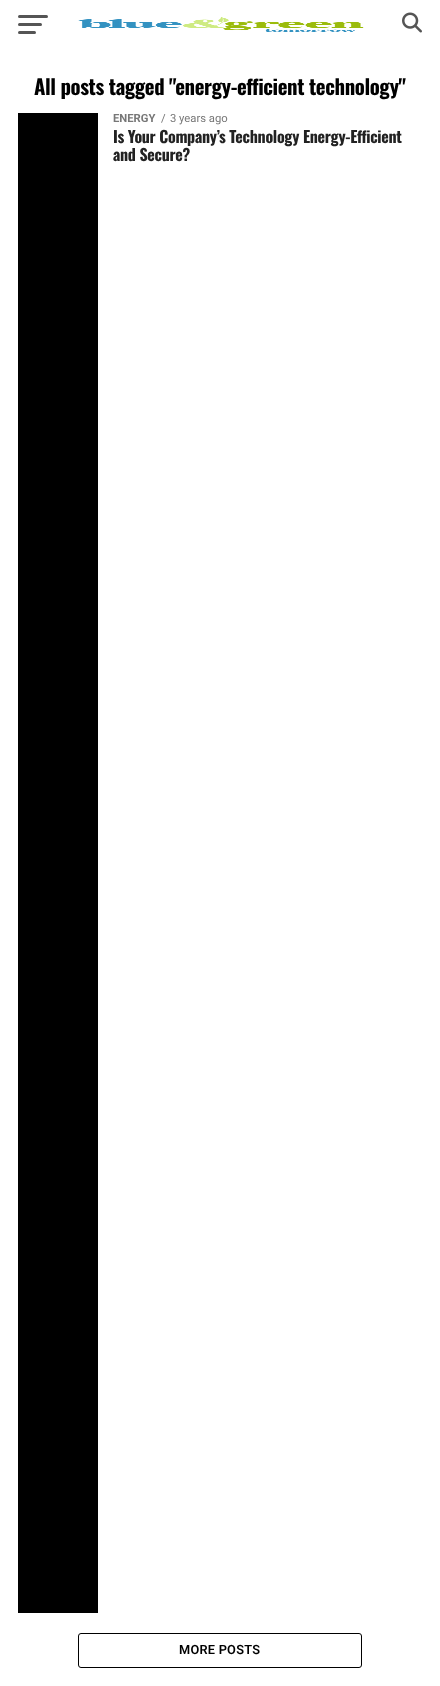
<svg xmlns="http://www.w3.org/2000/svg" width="440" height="1686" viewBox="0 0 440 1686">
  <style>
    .t1 { font: bold 20.75px Oswald; letter-spacing: -0.4px; fill: #000; }
    .t2 { font: bold 11.25px Roboto; fill: #777; }
    .t3 { font: 11.25px Roboto; fill: #777; }
    .t4 { font: bold 16px Oswald; letter-spacing: -0.3px; fill: #222; }
    .t5 { font: 600 12.75px Roboto; letter-spacing: 0.25px; fill: #000; }
  </style>
  <rect width="100%" height="100%" fill="#fff"/>
  <rect x="18" y="15" width="30" height="3" rx="1.5" fill="#555"/>
  <rect x="18" y="23" width="24" height="3" rx="1.5" fill="#555"/>
  <rect x="18" y="31" width="18" height="3" rx="1.5" fill="#555"/>
  <image x="78" y="17" width="286" height="15" href="images/1.png"/>
  <image x="402" y="12" width="20" height="21" href="images/2.png"/>
  <text x="34" y="95" class="t1">All posts tagged "energy-efficient technology"</text>
  <rect x="18" y="113" width="80" height="1500" fill="#000"/>
  <text x="113" y="122" class="t2">ENERGY</text>
  <text x="161" y="122" class="t3">/</text>
  <text x="170" y="122" class="t3">3 years ago</text>
  <text x="113" y="143" class="t4">Is Your Company’s Technology Energy-Efficient</text>
  <text x="113" y="161" class="t4">and Secure?</text>
  <rect x="78.5" y="1633.5" width="283" height="34" rx="2.5" fill="none" stroke="#000"/>
  <text x="179" y="1654" class="t5">MORE POSTS</text>
</svg>
